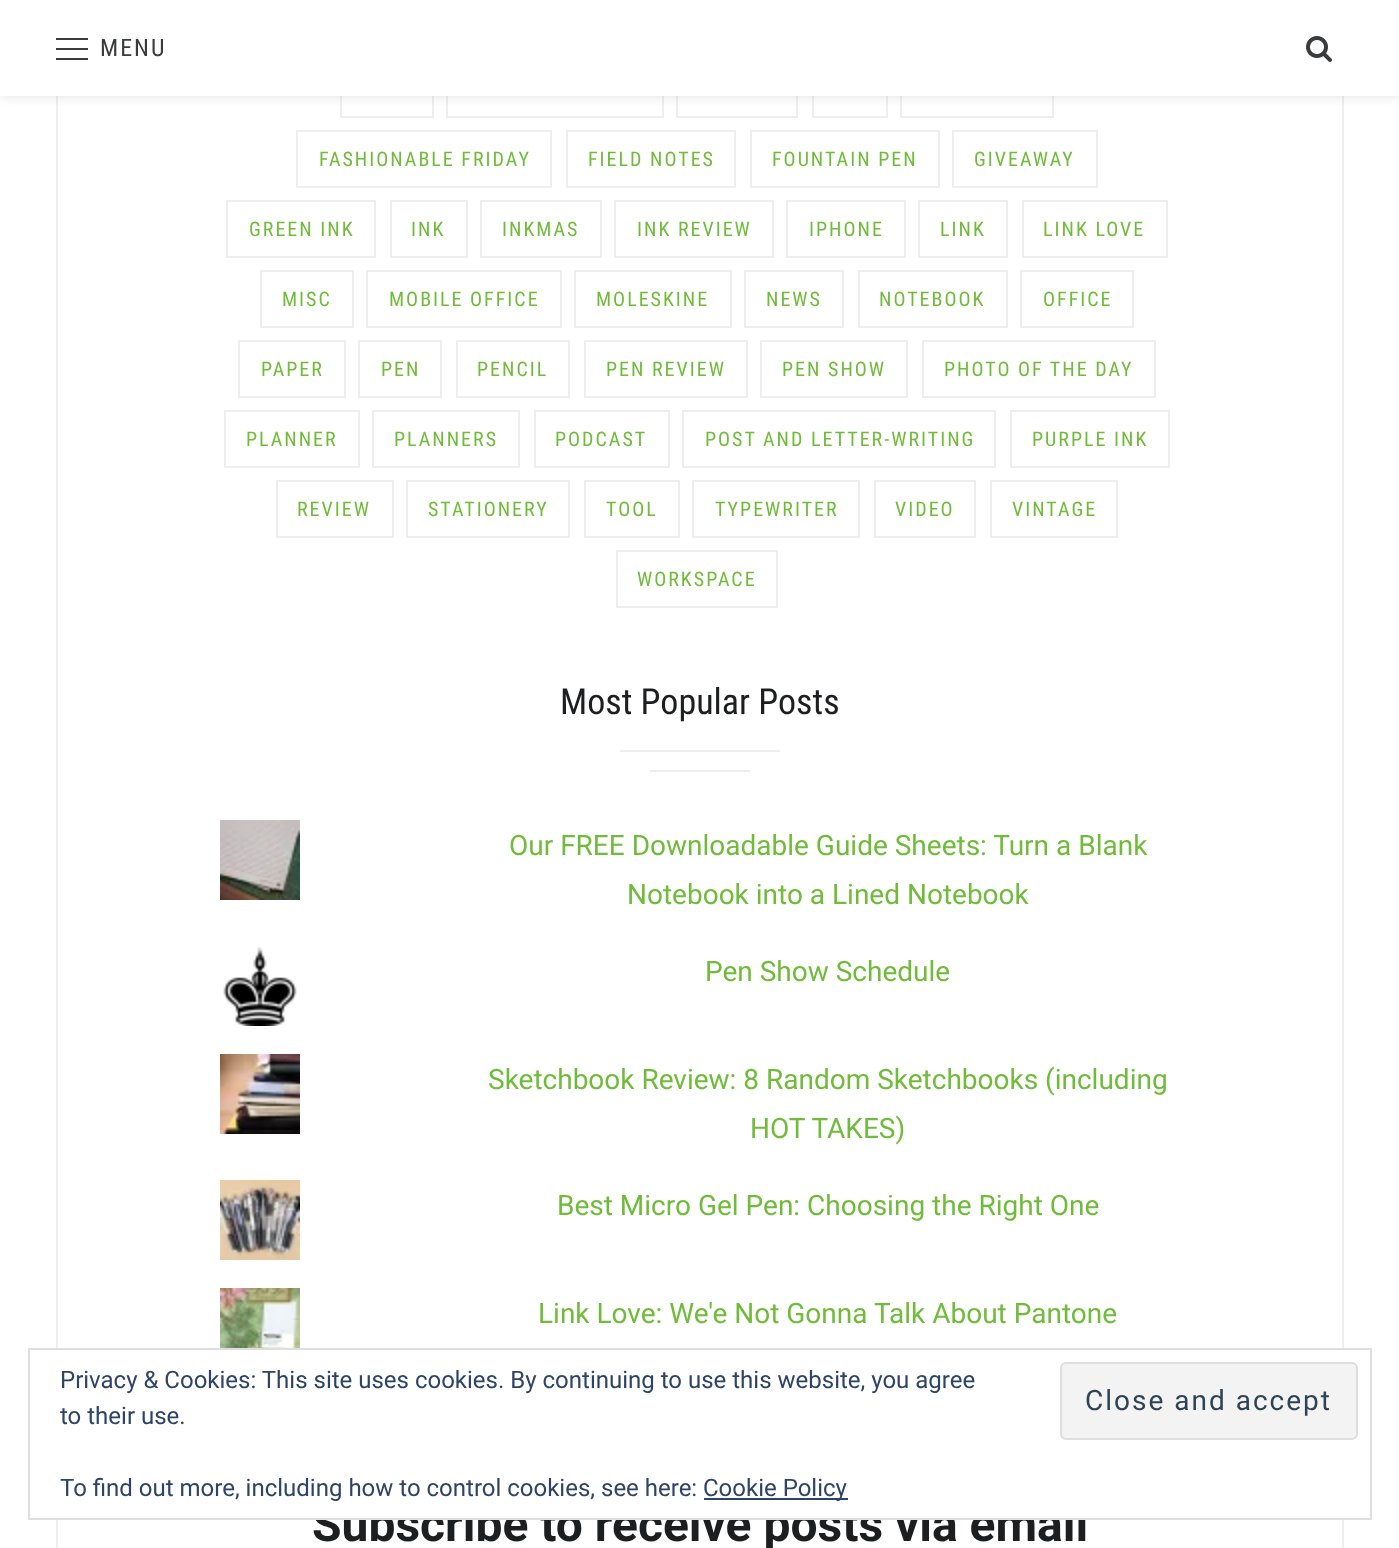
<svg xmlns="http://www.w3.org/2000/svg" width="1399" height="1548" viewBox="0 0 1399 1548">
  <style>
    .t1 { font: 24px Roboto Condensed; letter-spacing: 2px; fill: #3a3b3d; }
    .t2 { font: 20px Roboto Condensed; letter-spacing: 2px; fill: #70bc3a; }
    .t3 { font: 36px Roboto Condensed; fill: #1d1e1f; }
    .t4 { font: 28px Roboto; fill: #70bc3a; }
    .t5 { font: bold 48px Roboto; fill: #1d1e1f; }
    .t6 { font: 24px Roboto; fill: #2e4467; }
    .t7 { font: 28px Roboto; letter-spacing: 2px; fill: #2e4453; }
  </style>
  <rect width="100%" height="100%" fill="#fff"/>
  <rect x="57" y="-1" width="1286" height="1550" fill="none" stroke="#eee" stroke-width="2"/>
  <rect x="341" y="61" width="92" height="56" fill="none" stroke="#eee" stroke-width="2"/>
  <rect x="447" y="61" width="216" height="56" fill="none" stroke="#eee" stroke-width="2"/>
  <rect x="677" y="61" width="120" height="56" fill="none" stroke="#eee" stroke-width="2"/>
  <rect x="813" y="61" width="74" height="56" fill="none" stroke="#eee" stroke-width="2"/>
  <rect x="901" y="61" width="152" height="56" fill="none" stroke="#eee" stroke-width="2"/>
  <rect x="0" y="2" width="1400" height="96" fill="#b6b6b64d" filter="blur(5px)"/>
  <rect x="0" y="0" width="1399" height="96" fill="#fff"/>
  <rect x="56" y="48" width="32" height="2" fill="#3a3b3d"/>
  <rect x="56" y="38" width="32" height="2" fill="#3a3b3d"/>
  <rect x="56" y="58" width="32" height="2" fill="#3a3b3d"/>
  <text x="100" y="56" class="t1">MENU</text>
  <image x="1306" y="36" width="26" height="26" href="images/1.png"/>
  <rect x="297" y="131" width="254" height="56" fill="none" stroke="#eee" stroke-width="2"/>
  <text x="319" y="166" class="t2">FASHIONABLE FRIDAY</text>
  <rect x="567" y="131" width="168" height="56" fill="none" stroke="#eee" stroke-width="2"/>
  <text x="588" y="166" class="t2">FIELD NOTES</text>
  <rect x="751" y="131" width="188" height="56" fill="none" stroke="#eee" stroke-width="2"/>
  <text x="772" y="166" class="t2">FOUNTAIN PEN</text>
  <rect x="953" y="131" width="144" height="56" fill="none" stroke="#eee" stroke-width="2"/>
  <text x="974" y="166" class="t2">GIVEAWAY</text>
  <rect x="227" y="201" width="148" height="56" fill="none" stroke="#eee" stroke-width="2"/>
  <text x="249" y="236" class="t2">GREEN INK</text>
  <rect x="391" y="201" width="76" height="56" fill="none" stroke="#eee" stroke-width="2"/>
  <text x="411" y="236" class="t2">INK</text>
  <rect x="481" y="201" width="120" height="56" fill="none" stroke="#eee" stroke-width="2"/>
  <text x="502" y="236" class="t2">INKMAS</text>
  <rect x="615" y="201" width="158" height="56" fill="none" stroke="#eee" stroke-width="2"/>
  <text x="637" y="236" class="t2">INK REVIEW</text>
  <rect x="787" y="201" width="118" height="56" fill="none" stroke="#eee" stroke-width="2"/>
  <text x="809" y="236" class="t2">IPHONE</text>
  <rect x="919" y="201" width="88" height="56" fill="none" stroke="#eee" stroke-width="2"/>
  <text x="940" y="236" class="t2">LINK</text>
  <rect x="1023" y="201" width="144" height="56" fill="none" stroke="#eee" stroke-width="2"/>
  <text x="1043" y="236" class="t2">LINK LOVE</text>
  <rect x="261" y="271" width="92" height="56" fill="none" stroke="#eee" stroke-width="2"/>
  <text x="282" y="306" class="t2">MISC</text>
  <rect x="367" y="271" width="194" height="56" fill="none" stroke="#eee" stroke-width="2"/>
  <text x="389" y="306" class="t2">MOBILE OFFICE</text>
  <rect x="575" y="271" width="156" height="56" fill="none" stroke="#eee" stroke-width="2"/>
  <text x="596" y="306" class="t2">MOLESKINE</text>
  <rect x="745" y="271" width="98" height="56" fill="none" stroke="#eee" stroke-width="2"/>
  <text x="766" y="306" class="t2">NEWS</text>
  <rect x="859" y="271" width="148" height="56" fill="none" stroke="#eee" stroke-width="2"/>
  <text x="879" y="306" class="t2">NOTEBOOK</text>
  <rect x="1021" y="271" width="112" height="56" fill="none" stroke="#eee" stroke-width="2"/>
  <text x="1043" y="306" class="t2">OFFICE</text>
  <rect x="239" y="341" width="106" height="56" fill="none" stroke="#eee" stroke-width="2"/>
  <text x="261" y="376" class="t2">PAPER</text>
  <rect x="359" y="341" width="82" height="56" fill="none" stroke="#eee" stroke-width="2"/>
  <text x="381" y="376" class="t2">PEN</text>
  <rect x="457" y="341" width="112" height="56" fill="none" stroke="#eee" stroke-width="2"/>
  <text x="477" y="376" class="t2">PENCIL</text>
  <rect x="585" y="341" width="162" height="56" fill="none" stroke="#eee" stroke-width="2"/>
  <text x="606" y="376" class="t2">PEN REVIEW</text>
  <rect x="761" y="341" width="146" height="56" fill="none" stroke="#eee" stroke-width="2"/>
  <text x="782" y="376" class="t2">PEN SHOW</text>
  <rect x="923" y="341" width="232" height="56" fill="none" stroke="#eee" stroke-width="2"/>
  <text x="944" y="376" class="t2">PHOTO OF THE DAY</text>
  <rect x="225" y="411" width="134" height="56" fill="none" stroke="#eee" stroke-width="2"/>
  <text x="246" y="446" class="t2">PLANNER</text>
  <rect x="373" y="411" width="146" height="56" fill="none" stroke="#eee" stroke-width="2"/>
  <text x="394" y="446" class="t2">PLANNERS</text>
  <rect x="535" y="411" width="134" height="56" fill="none" stroke="#eee" stroke-width="2"/>
  <text x="555" y="446" class="t2">PODCAST</text>
  <rect x="683" y="411" width="312" height="56" fill="none" stroke="#eee" stroke-width="2"/>
  <text x="705" y="446" class="t2">POST AND LETTER-WRITING</text>
  <rect x="1011" y="411" width="158" height="56" fill="none" stroke="#eee" stroke-width="2"/>
  <text x="1032" y="446" class="t2">PURPLE INK</text>
  <rect x="277" y="481" width="116" height="56" fill="none" stroke="#eee" stroke-width="2"/>
  <text x="297" y="516" class="t2">REVIEW</text>
  <rect x="407" y="481" width="162" height="56" fill="none" stroke="#eee" stroke-width="2"/>
  <text x="428" y="516" class="t2">STATIONERY</text>
  <rect x="585" y="481" width="94" height="56" fill="none" stroke="#eee" stroke-width="2"/>
  <text x="606" y="516" class="t2">TOOL</text>
  <rect x="693" y="481" width="166" height="56" fill="none" stroke="#eee" stroke-width="2"/>
  <text x="715" y="516" class="t2">TYPEWRITER</text>
  <rect x="875" y="481" width="100" height="56" fill="none" stroke="#eee" stroke-width="2"/>
  <text x="895" y="516" class="t2">VIDEO</text>
  <rect x="991" y="481" width="126" height="56" fill="none" stroke="#eee" stroke-width="2"/>
  <text x="1012" y="516" class="t2">VINTAGE</text>
  <rect x="617" y="551" width="160" height="56" fill="none" stroke="#eee" stroke-width="2"/>
  <text x="637" y="586" class="t2">WORKSPACE</text>
  <text x="560" y="714" class="t3">Most Popular Posts</text>
  <rect x="620" y="750" width="160" height="2" fill="#eee"/>
  <rect x="650" y="770" width="100" height="2" fill="#eee"/>
  <image x="220" y="820" width="80" height="80" href="images/2.png"/>
  <text x="509" y="855" class="t4">Our FREE Downloadable Guide Sheets: Turn a Blank</text>
  <text x="627" y="904" class="t4">Notebook into a Lined Notebook</text>
  <image x="223" y="946" width="74" height="80" href="images/3.png"/>
  <text x="705" y="981" class="t4">Pen Show Schedule</text>
  <image x="220" y="1054" width="80" height="80" href="images/4.png"/>
  <text x="488" y="1089" class="t4">Sketchbook Review: 8 Random Sketchbooks (including</text>
  <text x="750" y="1138" class="t4">HOT TAKES)</text>
  <image x="220" y="1180" width="80" height="80" href="images/5.png"/>
  <text x="557" y="1215" class="t4">Best Micro Gel Pen: Choosing the Right One</text>
  <image x="220" y="1288" width="80" height="60" href="images/6.png"/>
  <text x="538" y="1323" class="t4">Link Love: We'e Not Gonna Talk About Pantone</text>
  <text x="312" y="1541" class="t5">Subscribe to receive posts via email</text>
  <rect x="56" y="1350" width="1288" height="168" fill="#fff"/>
  <rect x="29" y="1349" width="1342" height="170" fill="none" stroke="#dedede" stroke-width="2"/>
  <text x="60" y="1388" class="t6">Privacy &amp; Cookies: This site uses cookies. By continuing to use this website, you agree</text>
  <text x="60" y="1424" class="t6">to their use.</text>
  <rect x="1061" y="1363" width="296" height="76" rx="5" fill="#f3f3f3" stroke="#dedede" stroke-width="2"/>
  <text x="1085" y="1410" class="t7">Close and accept</text>
  <text x="60" y="1496" class="t6">To find out more, including how to control cookies, see here:</text>
  <rect x="704" y="1498" width="144" height="2" fill="#2e4467"/>
  <text x="703" y="1496" class="t6">Cookie Policy</text>
</svg>
